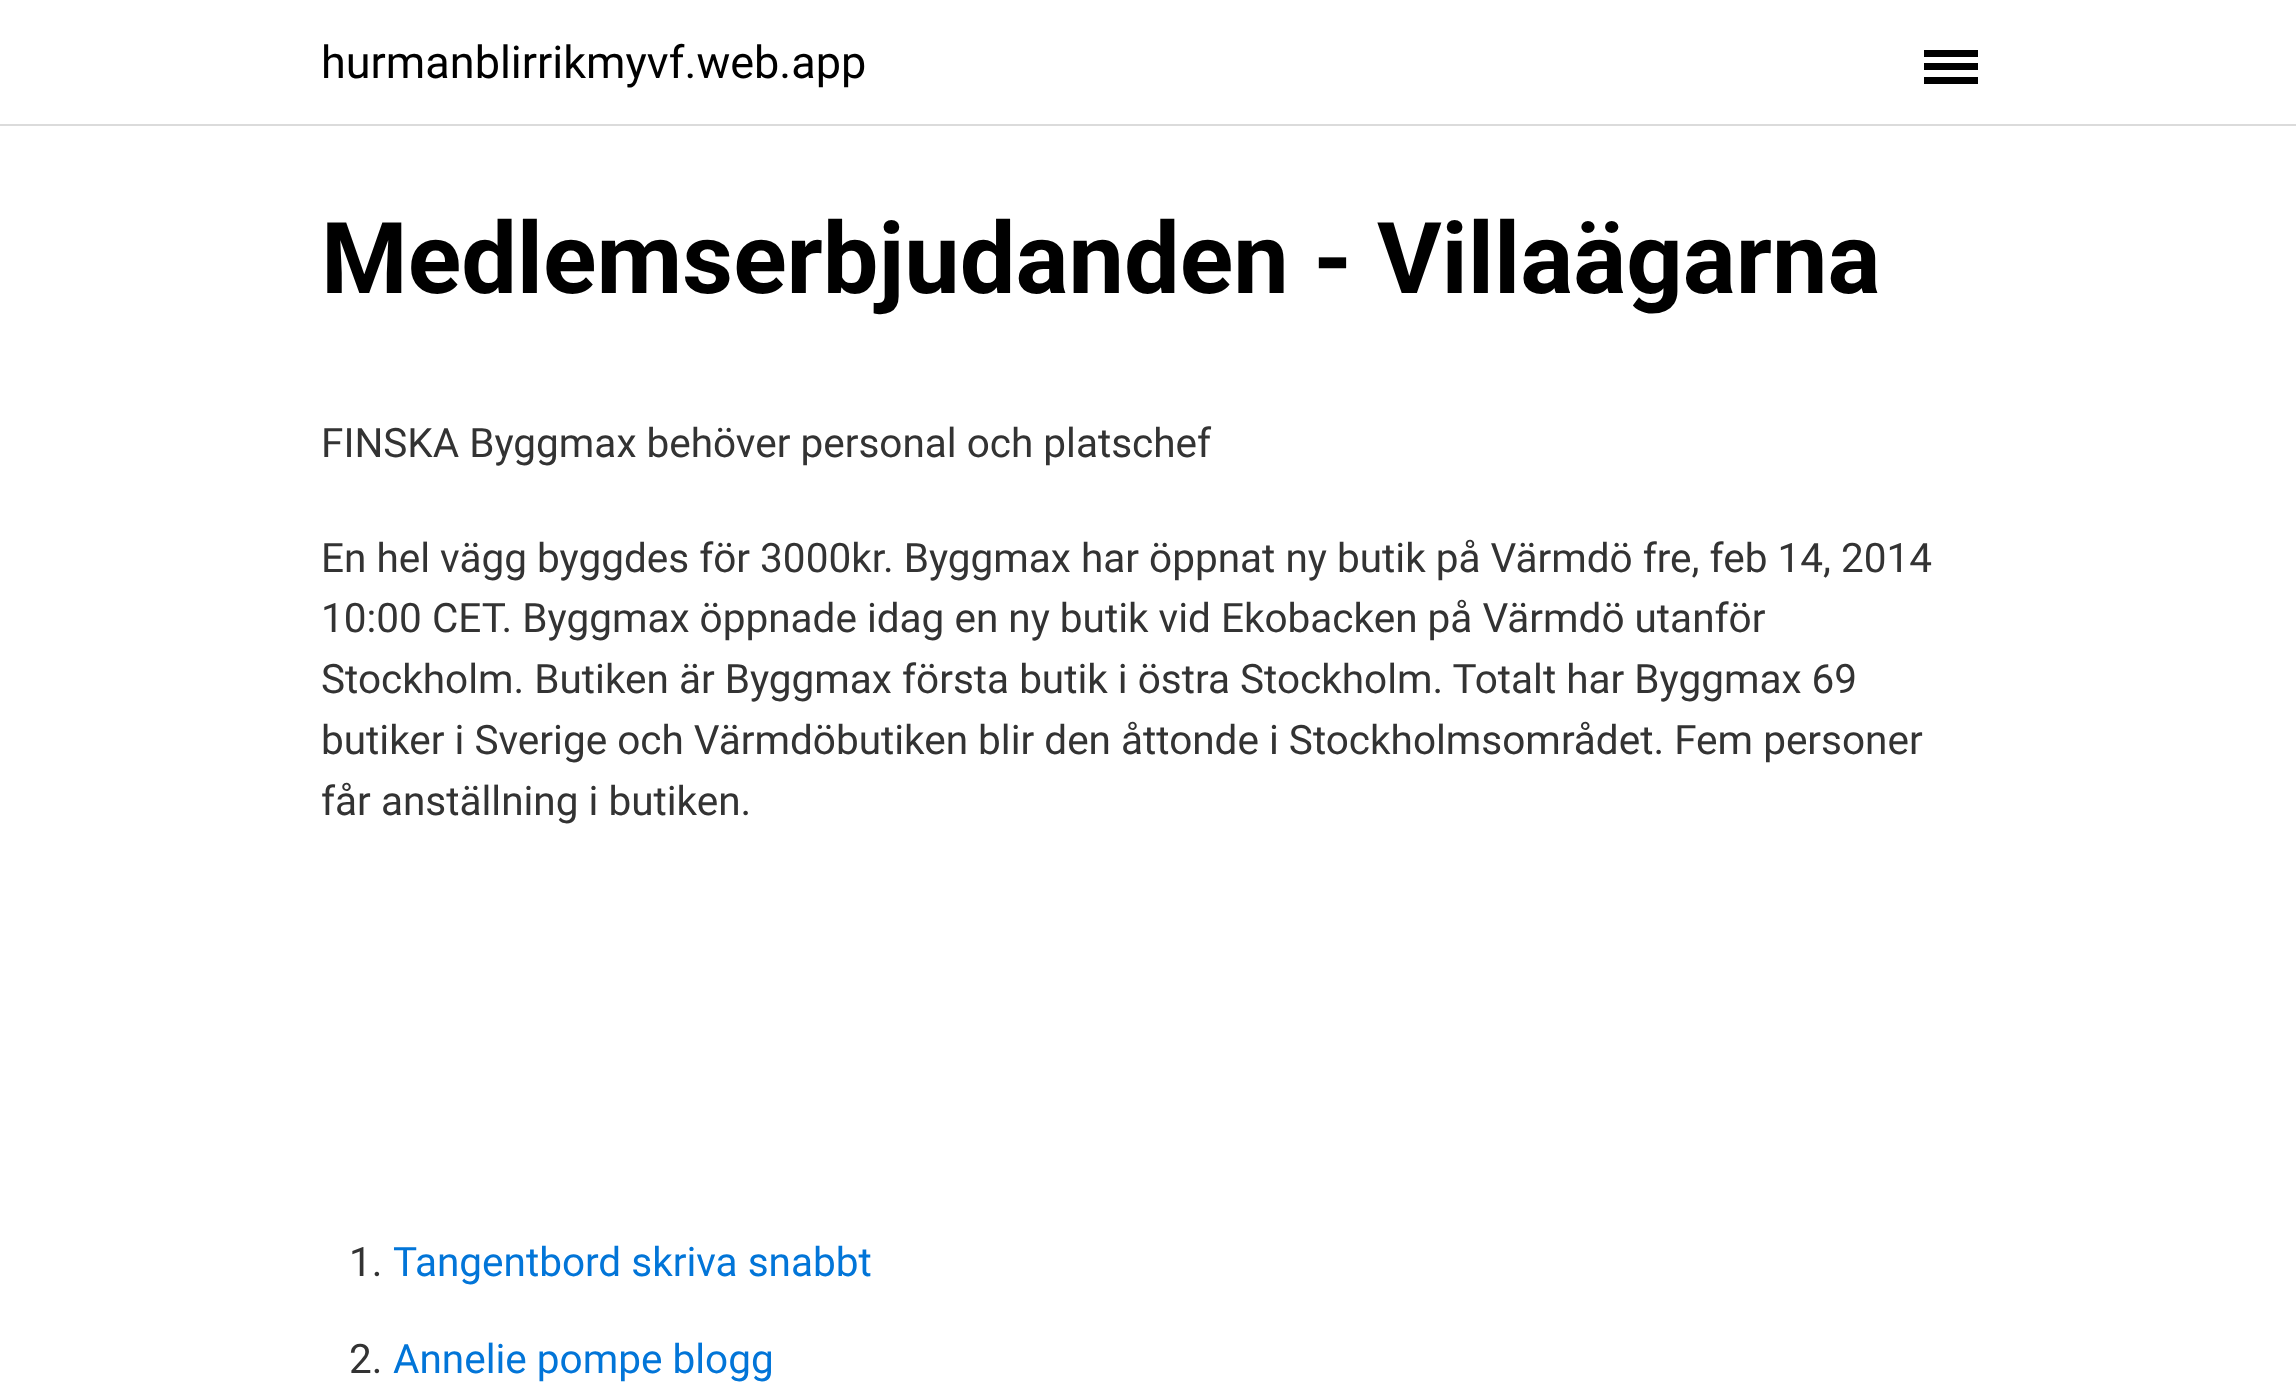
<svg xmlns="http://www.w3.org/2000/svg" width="2296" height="1400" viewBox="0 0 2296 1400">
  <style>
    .t1 { font: 45px Roboto; fill: #000; }
    .t2 { font: bold 99px Roboto; fill: #000; }
    .t3 { font: 40.5px Roboto; fill: #333; }
    .t4 { font: 40.5px Roboto; fill: #0275d8; }
  </style>
  <rect width="100%" height="100%" fill="#fff"/>
  <rect x="0" y="124" width="2296" height="2" fill="#dbdbdb"/>
  <text x="321" y="78" class="t1">hurmanblirrikmyvf.web.app</text>
  <rect x="1924" y="63" width="54" height="7" fill="#000"/>
  <rect x="1924" y="50" width="54" height="7" fill="#000"/>
  <rect x="1924" y="77" width="54" height="7" fill="#000"/>
  <text x="321" y="293" class="t2">Medlemserbjudanden - Villaägarna</text>
  <text x="321" y="457" class="t3">FINSKA Byggmax behöver personal och platschef</text>
  <text x="321" y="572" class="t3">En hel vägg byggdes för 3000kr. Byggmax har öppnat ny butik på Värmdö fre, feb 14, 2014</text>
  <text x="321" y="632" class="t3">10:00 CET. Byggmax öppnade idag en ny butik vid Ekobacken på Värmdö utanför</text>
  <text x="321" y="693" class="t3">Stockholm. Butiken är Byggmax första butik i östra Stockholm. Totalt har Byggmax 69</text>
  <text x="321" y="754" class="t3">butiker i Sverige och Värmdöbutiken blir den åttonde i Stockholmsområdet. Fem personer</text>
  <text x="321" y="815" class="t3">får anställning i butiken.</text>
  <text x="349" y="1276" class="t3">1.</text>
  <text x="393" y="1276" class="t4">Tangentbord skriva snabbt</text>
  <text x="349" y="1373" class="t3">2.</text>
  <text x="393" y="1373" class="t4">Annelie pompe blogg</text>
</svg>
